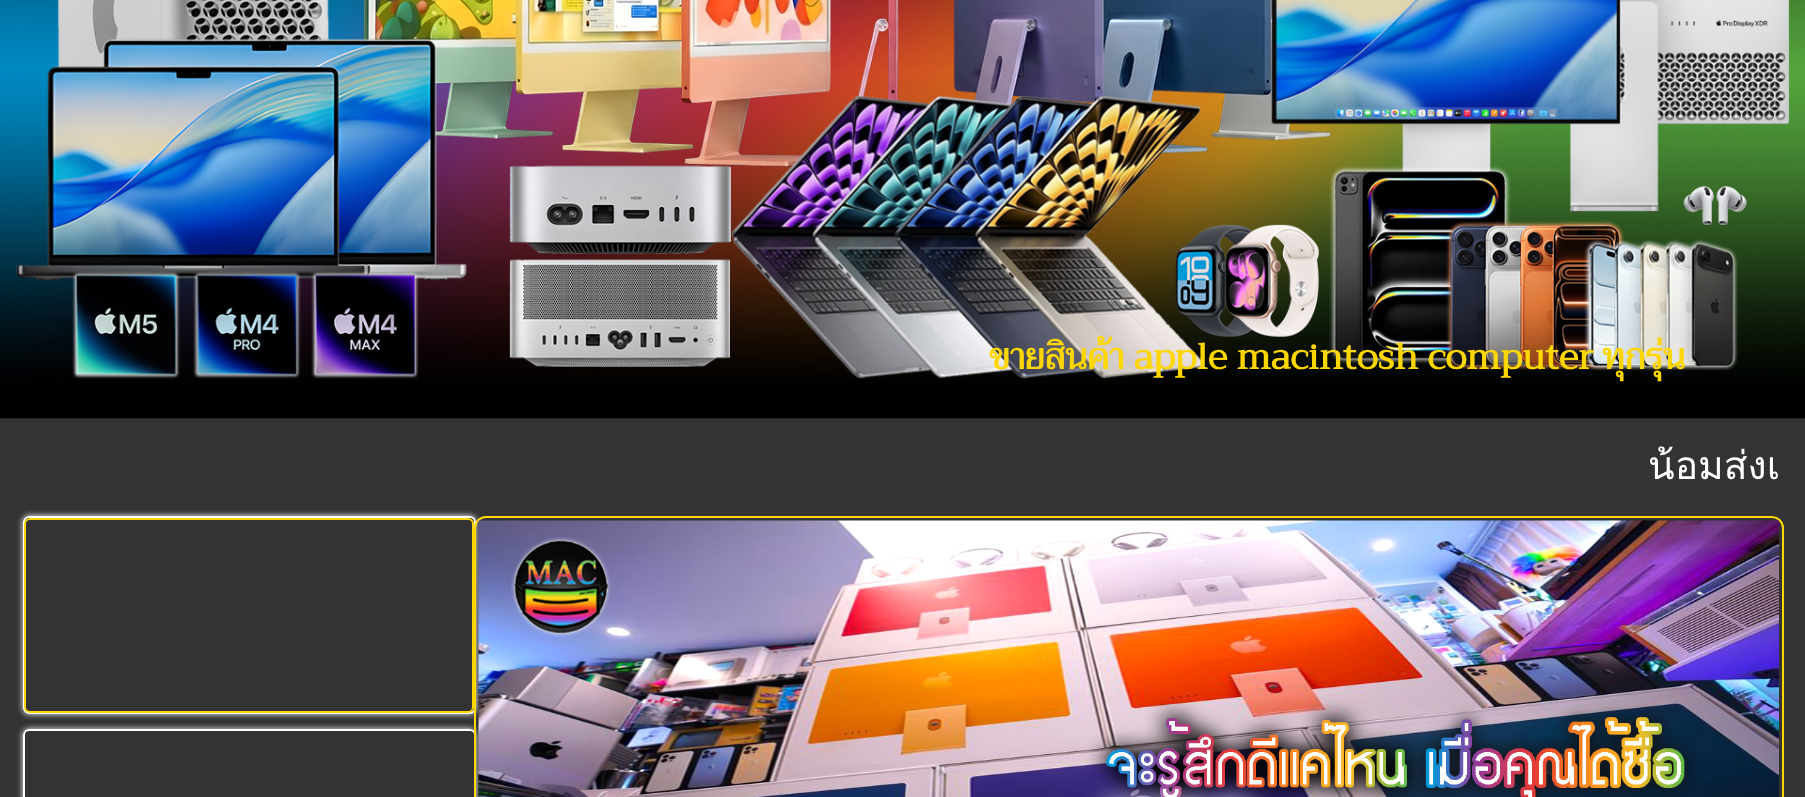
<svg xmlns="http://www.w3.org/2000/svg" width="1805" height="797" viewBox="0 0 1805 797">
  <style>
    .t1 { font: bold 36.1px Trirong; fill: #ffd700; }
    .t2 { font: 39px Loma; fill: #fff; }
  </style>
  <defs>
    <clipPath id="clip1"><path d="M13 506H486V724H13ZM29 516H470C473.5 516 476 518.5 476 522V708C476 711.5 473.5 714 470 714H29C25.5 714 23 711.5 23 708V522C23 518.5 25.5 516 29 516Z" clip-rule="evenodd"/></clipPath>
    <clipPath id="clip2"><path d="M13 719H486V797H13ZM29 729H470C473.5 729 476 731.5 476 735V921C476 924.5 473.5 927 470 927H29C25.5 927 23 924.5 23 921V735C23 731.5 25.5 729 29 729Z" clip-rule="evenodd"/></clipPath>
  </defs>
  <rect width="100%" height="100%" fill="#333"/>
  <image x="0" y="0" width="1805" height="419" href="images/1.png"/>
  <text x="989" y="369" class="t1">ขายสินค้า apple macintosh computer ทุกรุ่น</text>
  <text x="1648" y="479" word-spacing="-2" class="t2">น้อมส่งเ</text>
  <g clip-path="url(#clip1)">
    <rect x="23" y="516" width="453" height="198" rx="6" fill="#fff" filter="blur(3px)"/>
  </g>
  <rect x="24" y="517" width="451" height="196" rx="5" fill="none" stroke="#fff" stroke-width="2"/>
  <rect x="25" y="519" width="448" height="193" rx="5" fill="none" stroke="#ffd700" stroke-width="2"/>
  <g clip-path="url(#clip2)">
    <rect x="23" y="729" width="453" height="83" rx="6" fill="#fff" filter="blur(3px)"/>
  </g>
  <rect x="24" y="730" width="451" height="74" rx="5" fill="none" stroke="#fff" stroke-width="2"/>
  <rect x="475" y="517" width="1308" height="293" rx="11" fill="none" stroke="#ffd700" stroke-width="2"/>
  <image x="478" y="520" width="1301" height="277" href="images/2.png"/>
</svg>
